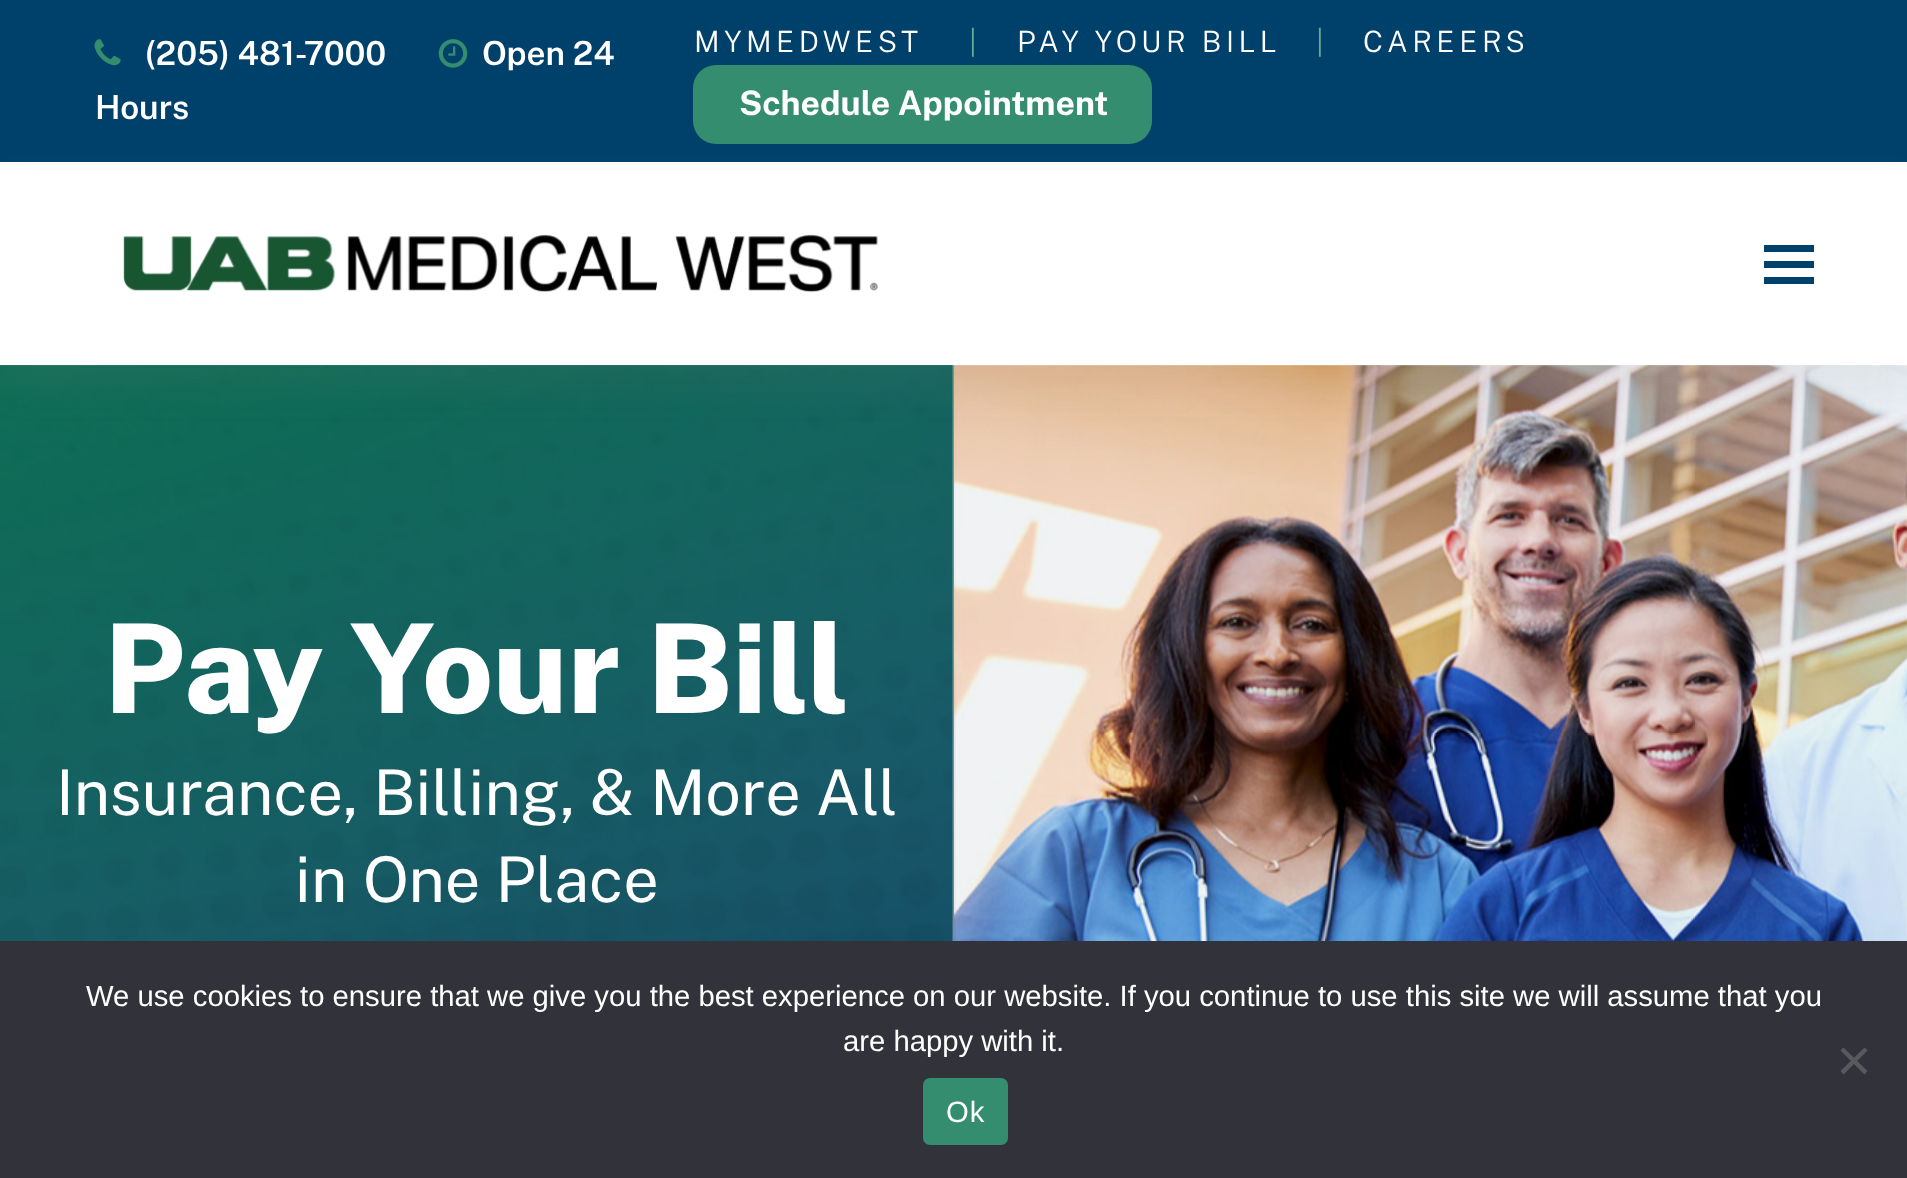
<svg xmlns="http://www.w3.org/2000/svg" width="1907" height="1178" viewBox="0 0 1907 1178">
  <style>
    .t1 { font: 600 33.25px Public Sans; fill: #fff; }
    .t2 { font: 300 29.25px Public Sans; letter-spacing: 4.5px; fill: #fff; }
    .t3 { font: 300 29.25px Public Sans; letter-spacing: 4.5px; fill: #66a992; }
    .t4 { font: bold 33.75px Public Sans; fill: #fff; }
    .t5 { font: 800 123.75px Public Sans; fill: #fff; }
    .t6 { font: 63px Public Sans; fill: #fff; }
    .t7 { font: 29.25px Liberation Sans; fill: #fff; }
    .t8 { font: 29.25px Liberation Sans; letter-spacing: 1px; fill: #fff; }
  </style>
  <rect width="100%" height="100%" fill="#fff"/>
  <rect x="0" y="0" width="1907" height="162" fill="#00416b"/>
  <image x="438" y="39" width="30" height="29" href="images/1.png"/>
  <text x="482" y="65" class="t1">Open 24</text>
  <text x="95" y="119" class="t1">Hours</text>
  <image x="94" y="39" width="27" height="27" href="images/2.png"/>
  <text x="145" y="65" class="t1">(205) 481-7000</text>
  <text x="694" y="52" class="t2">MYMEDWEST</text>
  <text x="969" y="52" class="t3">|</text>
  <text x="1017" y="52" class="t2">PAY YOUR BILL</text>
  <text x="1316" y="52" class="t3">|</text>
  <text x="1363" y="52" class="t2">CAREERS</text>
  <rect x="693" y="65" width="459" height="79" rx="23" fill="#338d6e"/>
  <text x="739" y="115" class="t4">Schedule Appointment</text>
  <image x="0" y="365" width="954" height="576" href="images/4.png"/>
  <image x="954" y="365" width="953" height="576" href="images/5.png"/>
  <rect x="0" y="185" width="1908" height="202" fill="#8684841a" filter="blur(18px)"/>
  <rect x="0" y="170" width="1907" height="195" fill="#fff"/>
  <image x="123" y="234" width="755" height="59" href="images/3.png"/>
  <rect x="1764" y="261" width="50" height="7" fill="#00416b"/>
  <rect x="1764" y="245" width="50" height="7" fill="#00416b"/>
  <rect x="1764" y="277" width="50" height="7" fill="#00416b"/>
  <text x="104" y="713" class="t5">Pay Your Bill</text>
  <text x="56" y="815" class="t6">Insurance, Billing, &amp; More All</text>
  <text x="295" y="902" class="t6">in One Place</text>
  <rect x="0" y="941" width="1907" height="237" fill="#32323a"/>
  <text x="86" y="1006" class="t7">We use cookies to ensure that we give you the best experience on our website. If you continue to use this site we will assume that you</text>
  <text x="843" y="1051" class="t7">are happy with it.</text>
  <path d="M1864.5 1047.5L1867.5 1050.5L1843.5 1074.5L1840.5 1071Z" fill="#59595d"/>
  <path d="M1840.5 1050.5L1843.5 1047.5L1867.5 1071L1864.5 1074.5Z" fill="#59595d"/>
  <rect x="923" y="1078" width="85" height="67" rx="7" fill="#338d6e"/>
  <text x="946" y="1122" class="t8">Ok</text>
</svg>
